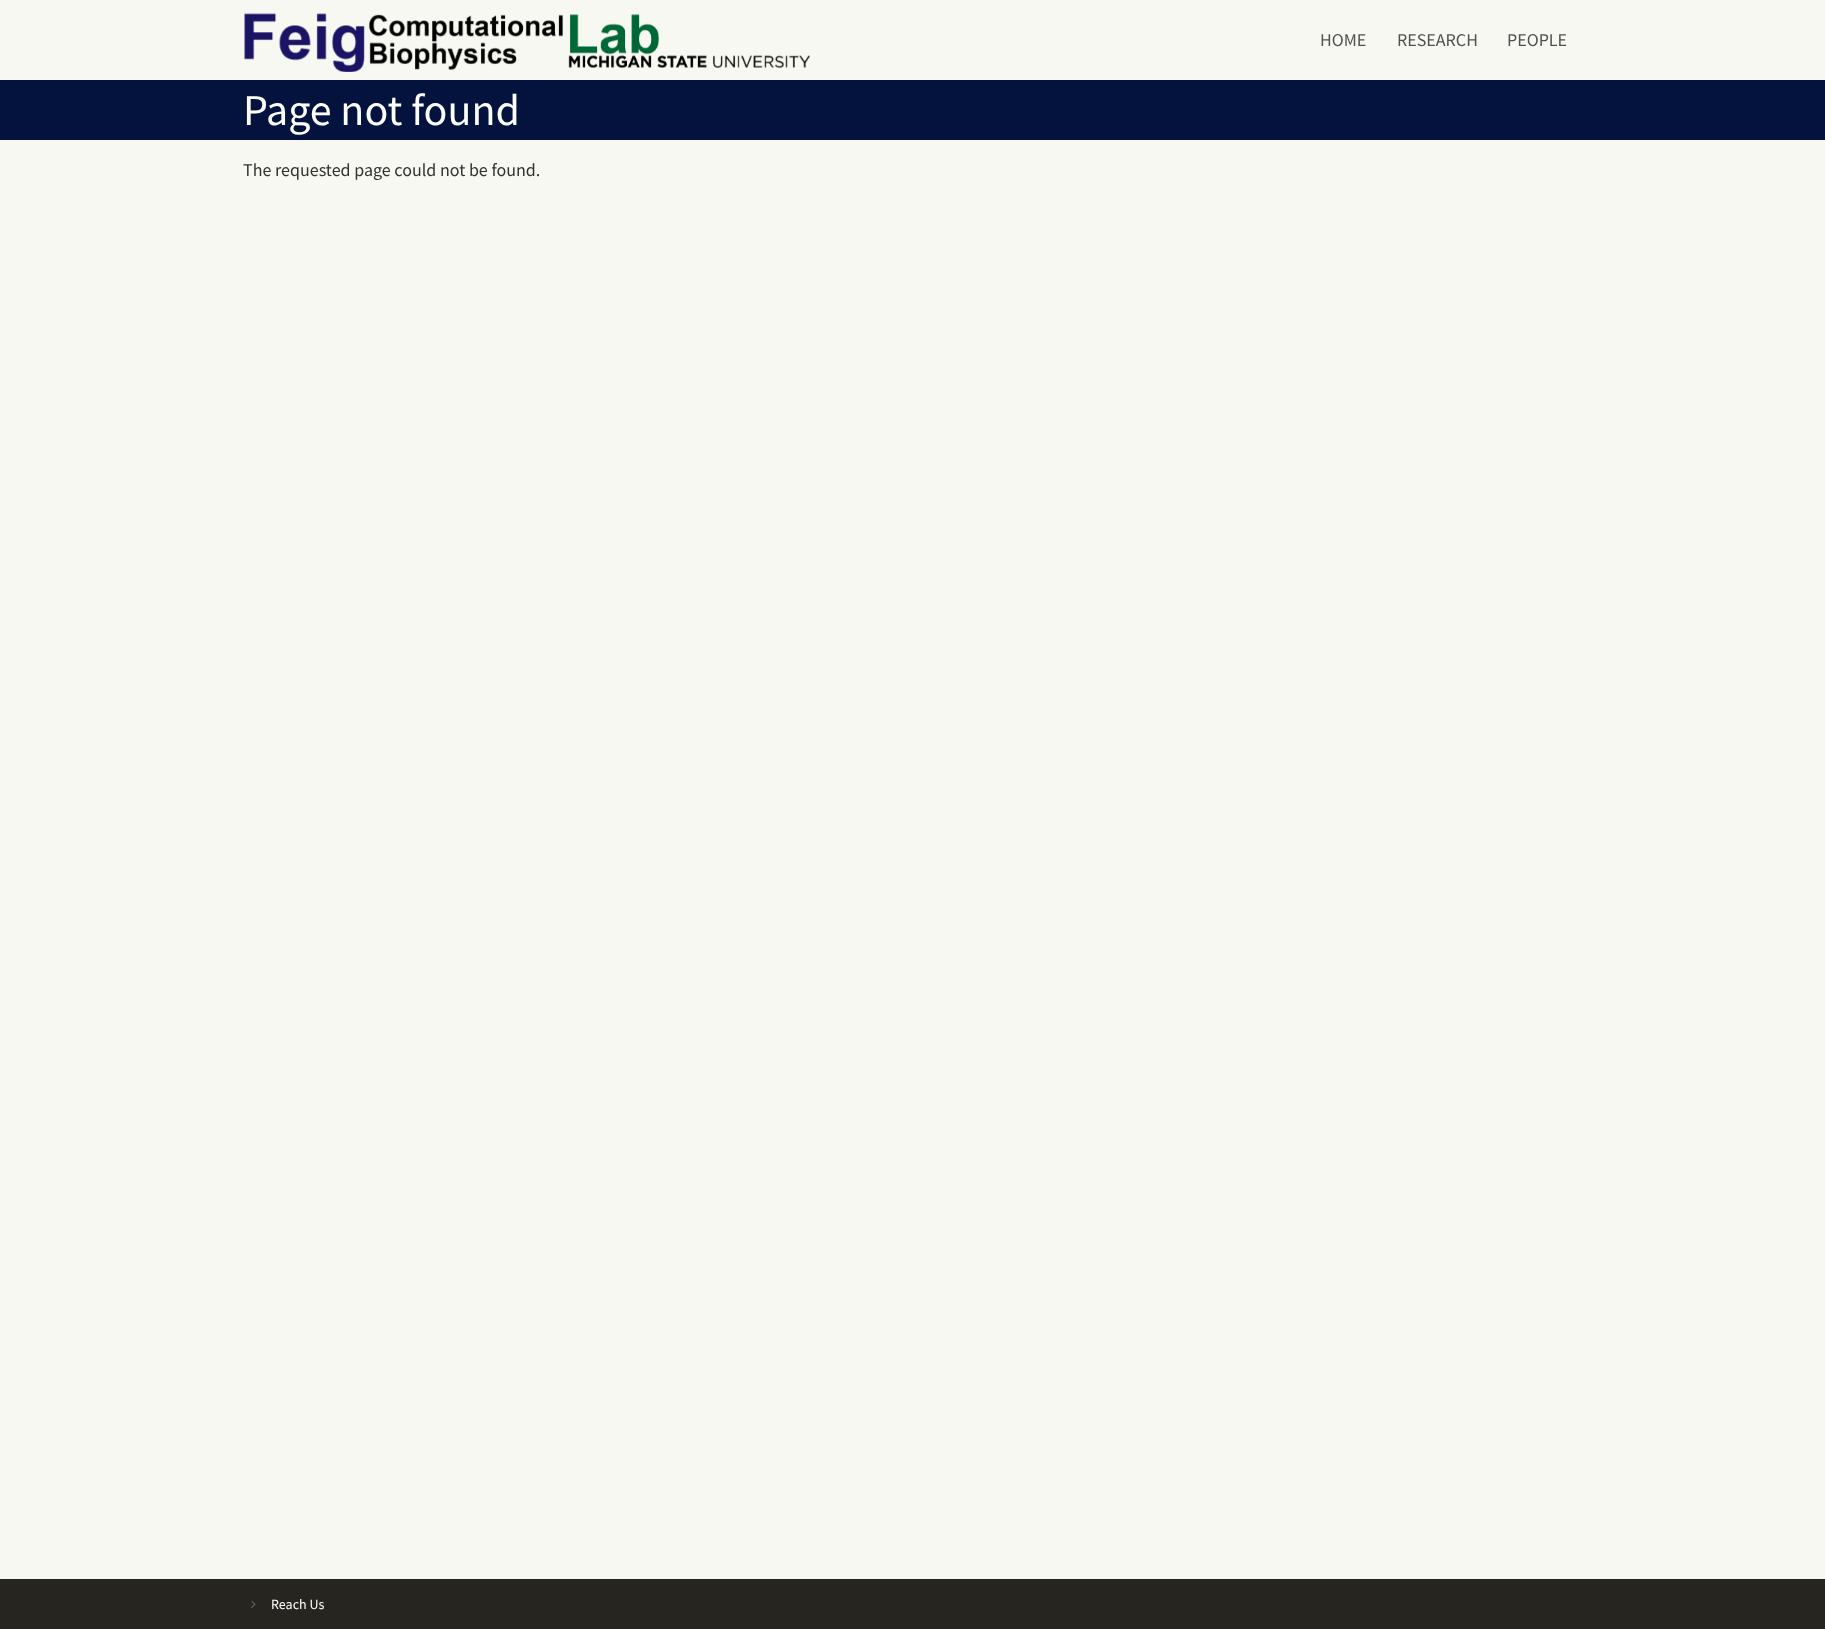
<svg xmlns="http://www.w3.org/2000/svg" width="1825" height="1629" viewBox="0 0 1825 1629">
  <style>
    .t1 { font: 18px Source Sans Pro; fill: #505050; }
    .t2 { font: 44px Source Sans Pro; fill: #fff; }
    .t3 { font: 18px Source Sans Pro; fill: #323232; }
    .t4 { font: 14px Source Sans Pro; fill: #fff; }
  </style>
  <rect width="100%" height="100%" fill="#f8f8f2"/>
  <image x="244" y="13" width="566" height="59" href="images/1.png"/>
  <text x="1320" y="46" class="t1">HOME</text>
  <text x="1397" y="46" class="t1">RESEARCH</text>
  <text x="1507" y="46" class="t1">PEOPLE</text>
  <rect x="0" y="80" width="1825" height="60" fill="#03133e"/>
  <text x="243" y="125" class="t2">Page not found</text>
  <text x="243" y="176" class="t3">The requested page could not be found.</text>
  <rect x="0" y="1579" width="1825" height="50" fill="#262520"/>
  <image x="251" y="1601" width="5" height="7" href="images/2.png"/>
  <text x="271" y="1609" class="t4">Reach Us</text>
</svg>
